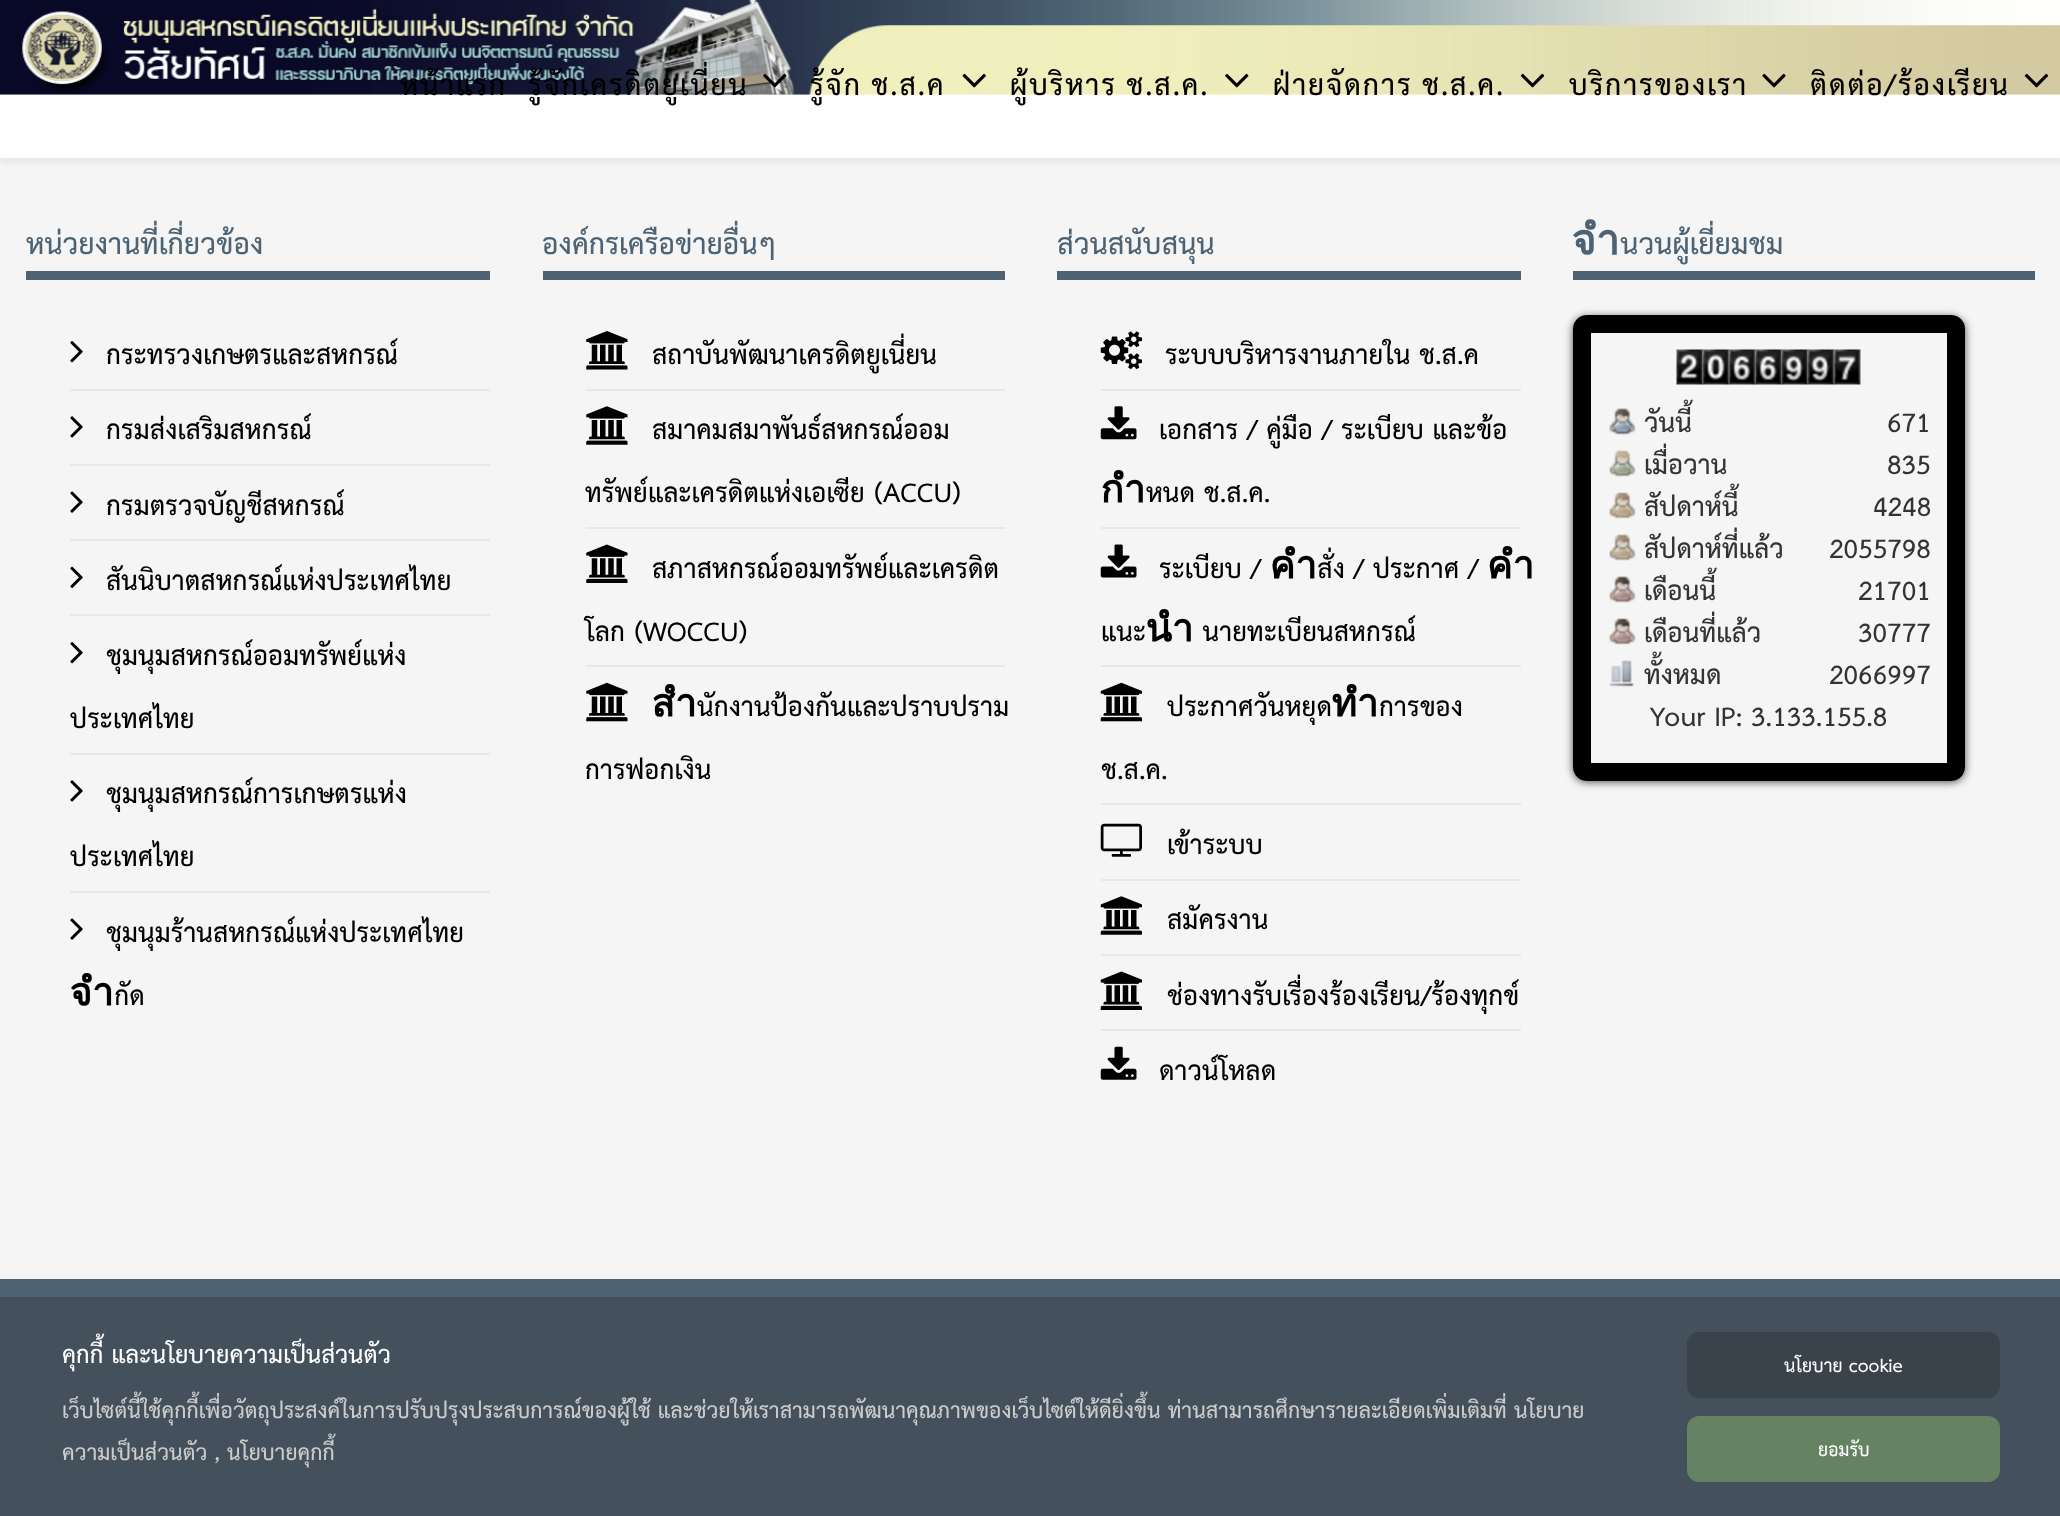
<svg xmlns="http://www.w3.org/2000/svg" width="2060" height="1516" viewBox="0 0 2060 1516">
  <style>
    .t1 { font: bold 42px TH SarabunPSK; letter-spacing: 1.75px; fill: #000; }
    .t2 { font: bold 42px TH SarabunPSK; fill: #4d6374; }
    .t3 { font: bold 38.5px TH SarabunPSK; fill: #000; }
    .t4 { font: bold 38.5px TH SarabunPSK; fill: #333; }
    .t5 { font: bold 35px TH SarabunPSK; fill: #fff; }
    .t6 { font: bold 31.5px TH SarabunPSK; fill: #ccc; }
    .t7 { font: bold 26.25px TH SarabunPSK; fill: #fff; }
  </style>
  <defs>
    <clipPath id="clip1"><path d="M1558 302H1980V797H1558ZM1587 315H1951C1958.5 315 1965 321.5 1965 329V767C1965 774.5 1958.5 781 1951 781H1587C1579.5 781 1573 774.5 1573 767V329C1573 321.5 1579.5 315 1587 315Z" clip-rule="evenodd"/></clipPath>
  </defs>
  <rect width="100%" height="100%" fill="#f5f5f5"/>
  <rect x="0" y="5" width="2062" height="158" fill="#0000000d" filter="blur(2.5px)"/>
  <rect x="0" y="94" width="2060" height="64" fill="#fff"/>
  <image x="0" y="0" width="2060" height="95" href="images/1.png"/>
  <text x="400" y="95" class="t1">หน้าแรก</text>
  <text x="528" y="95" class="t1">รู้จักเครดิตยูเนี่ยน</text>
  <image x="763" y="73" width="24" height="15" href="images/2.png"/>
  <text x="810" y="95" word-spacing="-2" class="t1">รู้จัก ช.ส.ค</text>
  <image x="962" y="73" width="24" height="15" href="images/3.png"/>
  <text x="1010" y="95" word-spacing="-2" class="t1">ผู้บริหาร ช.ส.ค.</text>
  <image x="1225" y="73" width="24" height="15" href="images/4.png"/>
  <text x="1273" y="95" word-spacing="-2" class="t1">ฝ่ายจัดการ ช.ส.ค.</text>
  <image x="1520" y="73" width="25" height="15" href="images/5.png"/>
  <text x="1569" y="95" class="t1">บริการของเรา</text>
  <image x="1762" y="73" width="24" height="15" href="images/6.png"/>
  <text x="1810" y="95" class="t1">ติดต่อ/ร้องเรียน</text>
  <image x="2024" y="73" width="25" height="15" href="images/7.png"/>
  <rect x="26" y="271" width="464" height="9" fill="#4d6374"/>
  <text x="26" y="254" class="t2">หน่วยงานที่เกี่ยวข้อง</text>
  <rect x="70" y="389" width="420" height="2" fill="#e8e8e8"/>
  <image x="70" y="341" width="13" height="22" href="images/8.png"/>
  <text x="106" y="364" class="t3">กระทรวงเกษตรและสหกรณ์</text>
  <rect x="70" y="464" width="420" height="2" fill="#e8e8e8"/>
  <image x="70" y="416" width="13" height="22" href="images/9.png"/>
  <text x="106" y="439" class="t3">กรมส่งเสริมสหกรณ์</text>
  <rect x="70" y="539" width="420" height="2" fill="#e8e8e8"/>
  <image x="70" y="491" width="13" height="22" href="images/10.png"/>
  <text x="106" y="515" class="t3">กรมตรวจบัญชีสหกรณ์</text>
  <rect x="70" y="614" width="420" height="2" fill="#e8e8e8"/>
  <image x="70" y="566" width="13" height="22" href="images/11.png"/>
  <text x="106" y="590" class="t3">สันนิบาตสหกรณ์แห่งประเทศไทย</text>
  <rect x="70" y="753" width="420" height="2" fill="#e8e8e8"/>
  <image x="70" y="642" width="13" height="22" href="images/8.png"/>
  <text x="106" y="665" class="t3">ชุมนุมสหกรณ์ออมทรัพย์แห่ง</text>
  <text x="70" y="728" class="t3">ประเทศไทย</text>
  <rect x="70" y="891" width="420" height="2" fill="#e8e8e8"/>
  <image x="70" y="780" width="13" height="22" href="images/9.png"/>
  <text x="106" y="803" class="t3">ชุมนุมสหกรณ์การเกษตรแห่ง</text>
  <text x="70" y="866" class="t3">ประเทศไทย</text>
  <image x="70" y="918" width="13" height="22" href="images/12.png"/>
  <text x="106" y="942" class="t3">ชุมนุมร้านสหกรณ์แห่งประเทศไทย</text>
  <text x="70" y="1005" class="t3">จำกัด</text>
  <rect x="543" y="271" width="462" height="9" fill="#4d6374"/>
  <text x="542" y="254" class="t2">องค์กรเครือข่ายอื่นๆ</text>
  <rect x="586" y="389" width="419" height="2" fill="#e8e8e8"/>
  <image x="586" y="331" width="42" height="39" href="images/13.png"/>
  <text x="652" y="364" class="t3">สถาบันพัฒนาเครดิตยูเนี่ยน</text>
  <rect x="586" y="527" width="419" height="2" fill="#e8e8e8"/>
  <image x="586" y="406" width="42" height="39" href="images/14.png"/>
  <text x="652" y="439" class="t3">สมาคมสมาพันธ์สหกรณ์ออม</text>
  <text x="585" y="502" class="t3">ทรัพย์และเครดิตแห่งเอเซีย (ACCU)</text>
  <rect x="586" y="665" width="419" height="2" fill="#e8e8e8"/>
  <image x="586" y="544" width="42" height="39" href="images/15.png"/>
  <text x="652" y="578" class="t3">สภาสหกรณ์ออมทรัพย์และเครดิต</text>
  <text x="585" y="641" class="t3">โลก (WOCCU)</text>
  <image x="586" y="682" width="42" height="40" href="images/16.png"/>
  <text x="652" y="716" class="t3">สำนักงานป้องกันและปราบปราม</text>
  <text x="585" y="779" class="t3">การฟอกเงิน</text>
  <rect x="1057" y="271" width="464" height="9" fill="#4d6374"/>
  <text x="1057" y="254" class="t2">ส่วนสนับสนุน</text>
  <rect x="1101" y="389" width="420" height="2" fill="#e8e8e8"/>
  <image x="1100" y="331" width="42" height="39" href="images/17.png"/>
  <text x="1165" y="364" class="t3">ระบบบริหารงานภายใน ช.ส.ค</text>
  <rect x="1101" y="527" width="420" height="2" fill="#e8e8e8"/>
  <image x="1100" y="406" width="37" height="34" href="images/18.png"/>
  <text x="1159" y="439" class="t3">เอกสาร / คู่มือ / ระเบียบ และข้อ</text>
  <text x="1101" y="502" class="t3">กำหนด ช.ส.ค.</text>
  <rect x="1101" y="665" width="420" height="2" fill="#e8e8e8"/>
  <image x="1100" y="544" width="37" height="34" href="images/19.png"/>
  <text x="1159" y="578" class="t3">ระเบียบ / คำสั่ง / ประกาศ / คำ</text>
  <text x="1101" y="641" class="t3">แนะนำ นายทะเบียนสหกรณ์</text>
  <rect x="1101" y="803" width="420" height="2" fill="#e8e8e8"/>
  <image x="1100" y="682" width="42" height="40" href="images/20.png"/>
  <text x="1167" y="716" class="t3">ประกาศวันหยุดทำการของ</text>
  <text x="1101" y="779" class="t3">ช.ส.ค.</text>
  <rect x="1101" y="879" width="420" height="2" fill="#e8e8e8"/>
  <image x="1100" y="823" width="42" height="34" href="images/21.png"/>
  <text x="1167" y="854" class="t3">เข้าระบบ</text>
  <rect x="1101" y="954" width="420" height="2" fill="#e8e8e8"/>
  <image x="1100" y="896" width="42" height="39" href="images/22.png"/>
  <text x="1167" y="929" class="t3">สมัครงาน</text>
  <rect x="1101" y="1029" width="420" height="2" fill="#e8e8e8"/>
  <image x="1100" y="971" width="42" height="39" href="images/23.png"/>
  <text x="1167" y="1005" class="t3">ช่องทางรับเรื่องร้องเรียน/ร้องทุกข์</text>
  <image x="1100" y="1046" width="37" height="34" href="images/24.png"/>
  <text x="1159" y="1080" class="t3">ดาวน์โหลด</text>
  <rect x="1573" y="271" width="462" height="9" fill="#4d6374"/>
  <text x="1572" y="254" class="t2">จำนวนผู้เยี่ยมชม</text>
  <g clip-path="url(#clip1)">
    <rect x="1573" y="317" width="392" height="465" rx="14" fill="#4a4a4a" filter="blur(4.5px)"/>
  </g>
  <rect x="1582" y="324" width="374" height="448" rx="5" fill="none" stroke="#000" stroke-width="18"/>
  <image x="1676" y="349" width="28" height="36" href="images/25.png"/>
  <image x="1702" y="349" width="28" height="36" href="images/26.png"/>
  <image x="1728" y="349" width="28" height="36" href="images/27.png"/>
  <image x="1754" y="349" width="28" height="36" href="images/28.png"/>
  <image x="1781" y="349" width="28" height="36" href="images/29.png"/>
  <image x="1807" y="349" width="28" height="36" href="images/30.png"/>
  <image x="1833" y="349" width="28" height="36" href="images/31.png"/>
  <image x="1609" y="408" width="27" height="27" href="images/32.png"/>
  <image x="1609" y="450" width="27" height="27" href="images/33.png"/>
  <image x="1609" y="492" width="27" height="27" href="images/34.png"/>
  <image x="1609" y="534" width="27" height="27" href="images/34.png"/>
  <image x="1609" y="576" width="27" height="27" href="images/35.png"/>
  <image x="1609" y="618" width="27" height="27" href="images/35.png"/>
  <image x="1609" y="660" width="25" height="27" href="images/36.png"/>
  <text x="1644" y="432" class="t4">วันนี้</text>
  <text x="1644" y="474" class="t4">เมื่อวาน</text>
  <text x="1644" y="516" class="t4">สัปดาห์นี้</text>
  <text x="1644" y="558" class="t4">สัปดาห์ที่แล้ว</text>
  <text x="1644" y="600" class="t4">เดือนนี้</text>
  <text x="1644" y="642" class="t4">เดือนที่แล้ว</text>
  <text x="1644" y="684" class="t4">ทั้งหมด</text>
  <text x="1887" y="432" class="t4">671</text>
  <text x="1887" y="474" class="t4">835</text>
  <text x="1873" y="516" class="t4">4248</text>
  <text x="1829" y="558" class="t4">2055798</text>
  <text x="1858" y="600" class="t4">21701</text>
  <text x="1858" y="642" class="t4">30777</text>
  <text x="1829" y="684" class="t4">2066997</text>
  <text x="1650" y="726" class="t4">Your IP: 3.133.155.8</text>
  <rect x="0" y="1279" width="2060" height="18" fill="#4d6374"/>
  <rect x="0" y="1297" width="2060" height="219" fill="#45505d"/>
  <text x="62" y="1363" class="t5">คุกกี้ และนโยบายความเป็นส่วนตัว</text>
  <text x="62" y="1418" class="t6">เว็บไซต์นี้ใช้คุกกี้เพื่อวัตถุประสงค์ในการปรับปรุงประสบการณ์ของผู้ใช้ และช่วยให้เราสามารถพัฒนาคุณภาพของเว็บไซต์ให้ดียิ่งขึ้น ท่านสามารถศึกษารายละเอียดเพิ่มเติมที่ นโยบาย</text>
  <text x="62" y="1460" class="t6">ความเป็นส่วนตัว , นโยบายคุกกี้</text>
  <rect x="1687" y="1332" width="313" height="66" rx="12" fill="#3a424c"/>
  <text x="1784" y="1372" class="t7">นโยบาย cookie</text>
  <rect x="1687" y="1416" width="313" height="66" rx="12" fill="#658263"/>
  <text x="1818" y="1456" class="t7">ยอมรับ</text>
</svg>
